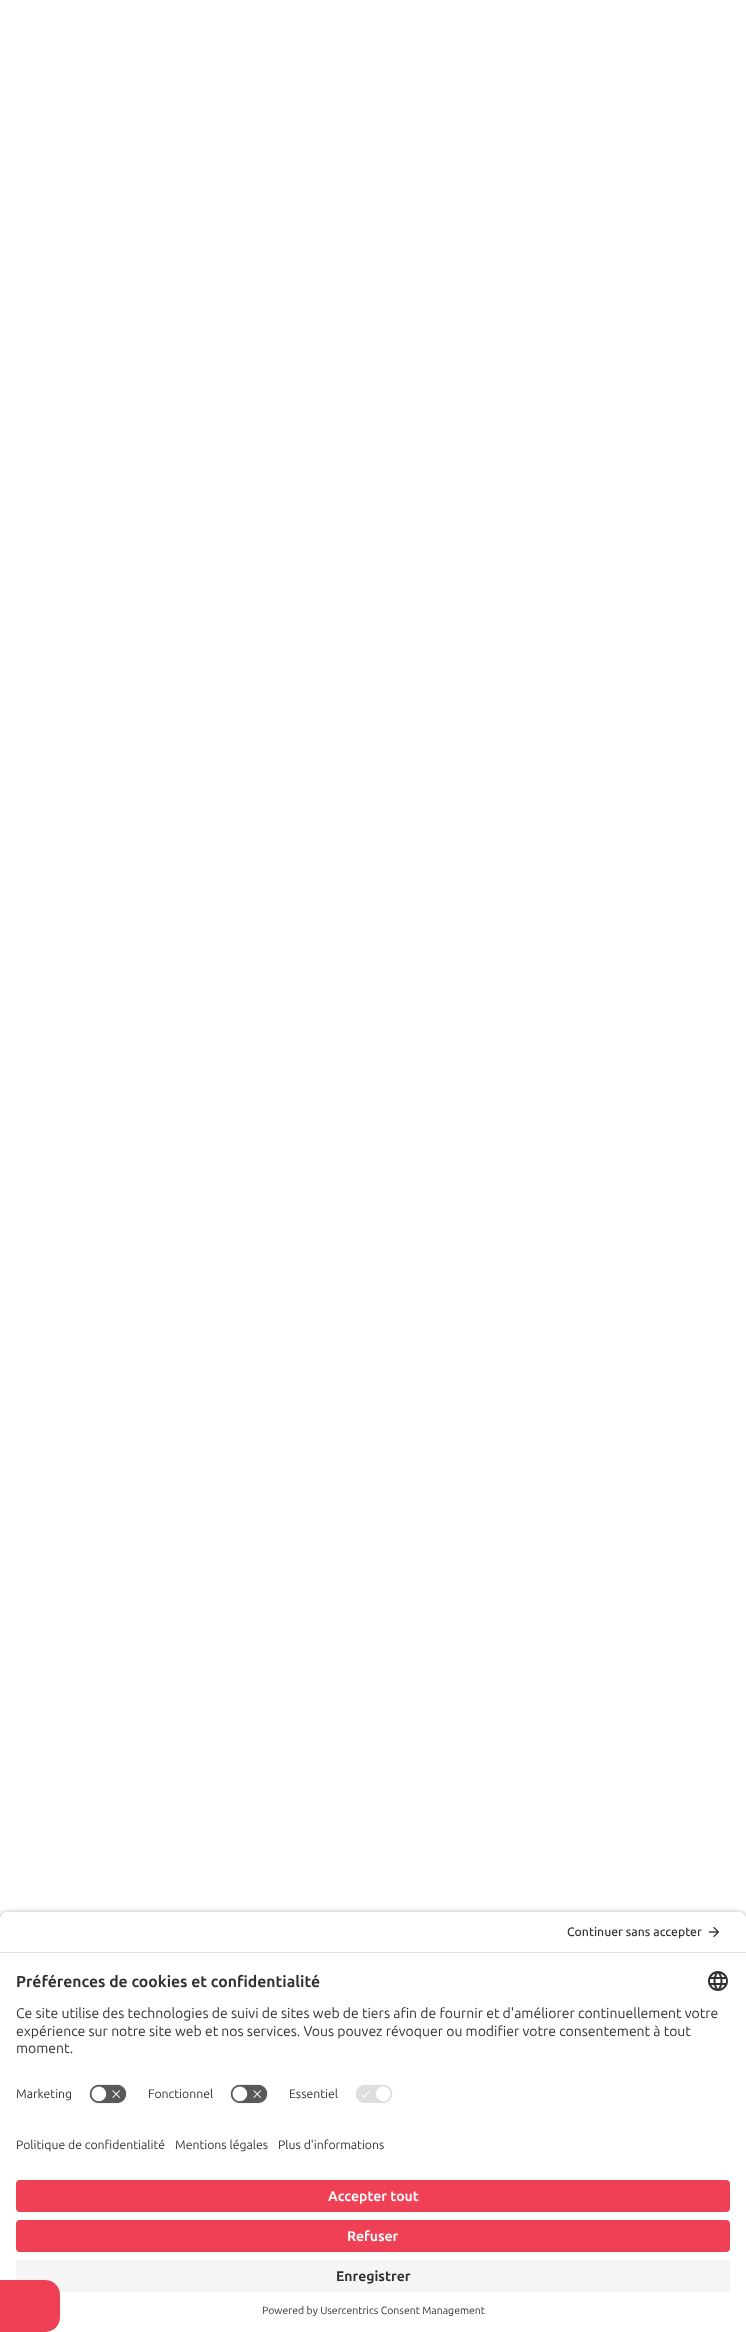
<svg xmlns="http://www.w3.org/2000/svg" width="746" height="2332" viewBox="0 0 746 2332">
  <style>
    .t1 { font: 500 12.25px Ubuntu; fill: #303030; }
    .t2 { font: bold 15.75px Ubuntu; fill: #303030; }
    .t3 { font: 14px Ubuntu; fill: #303030; }
    .t4 { font: 12.25px Ubuntu; fill: #303030; }
    .t5 { font: bold 14px Ubuntu; fill: #fafafa; }
    .t6 { font: bold 14px Ubuntu; fill: #303030; }
    .t7 { font: 10.5px Ubuntu; fill: #303030; }
  </style>
  <defs>
    <clipPath id="clip1"><path d="M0 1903H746V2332H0ZM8 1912H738C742.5 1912 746 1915.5 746 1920V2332H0V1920C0 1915.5 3.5 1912 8 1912Z" clip-rule="evenodd"/></clipPath>
  </defs>
  <rect width="100%" height="100%" fill="#fff"/>
  <g clip-path="url(#clip1)">
    <rect x="0" y="1915" width="746" height="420" rx="8" fill="#000000cc" filter="blur(3.5px)"/>
  </g>
  <path d="M8 1912H738C742.5 1912 746 1915.5 746 1920V1953H0V1920C0 1915.5 3.5 1912 8 1912Z" fill="#fff"/>
  <rect x="0" y="1952" width="746" height="1" fill="#dedede"/>
  <text x="567" y="1936" class="t1">Continuer sans accepter</text>
  <image x="708" y="1927" width="11" height="10" href="images/1.png"/>
  <text x="16" y="1987" class="t2">Préférences de cookies et confidentialité</text>
  <image x="708" y="1971" width="20" height="20" href="images/2.png"/>
  <text x="16" y="2018" class="t3">Ce site utilise des technologies de suivi de sites web de tiers afin de fournir et d'améliorer continuellement votre</text>
  <text x="16" y="2036" class="t3">expérience sur notre site web et nos services. Vous pouvez révoquer ou modifier votre consentement à tout</text>
  <text x="16" y="2053" class="t3">moment.</text>
  <text x="16" y="2098" class="t4">Marketing</text>
  <image x="89" y="2084" width="38" height="20" href="images/3.png"/>
  <text x="148" y="2098" class="t4">Fonctionnel</text>
  <image x="230" y="2084" width="38" height="20" href="images/3.png"/>
  <text x="289" y="2098" class="t4">Essentiel</text>
  <image x="355" y="2084" width="38" height="19" href="images/4.png"/>
  <text x="16" y="2149" class="t4">Politique de confidentialité</text>
  <text x="175" y="2149" class="t4">Mentions légales</text>
  <text x="278" y="2149" class="t4">Plus d'informations</text>
  <rect x="16" y="2180" width="714" height="32" rx="4" fill="#ef4056"/>
  <text x="328" y="2201" class="t5">Accepter tout</text>
  <rect x="16" y="2220" width="714" height="32" rx="4" fill="#ef4056"/>
  <text x="347" y="2241" class="t5">Refuser</text>
  <rect x="16" y="2260" width="714" height="32" rx="4" fill="#f5f5f5"/>
  <text x="336" y="2281" class="t6">Enregistrer</text>
  <text x="262" y="2314" class="t7">Powered by Usercentrics Consent Management</text>
  <path d="M0 2280H45C53.5 2280 60 2286.5 60 2295V2317C60 2325.5 53.5 2332 45 2332H0Z" fill="#ef4056"/>
</svg>
